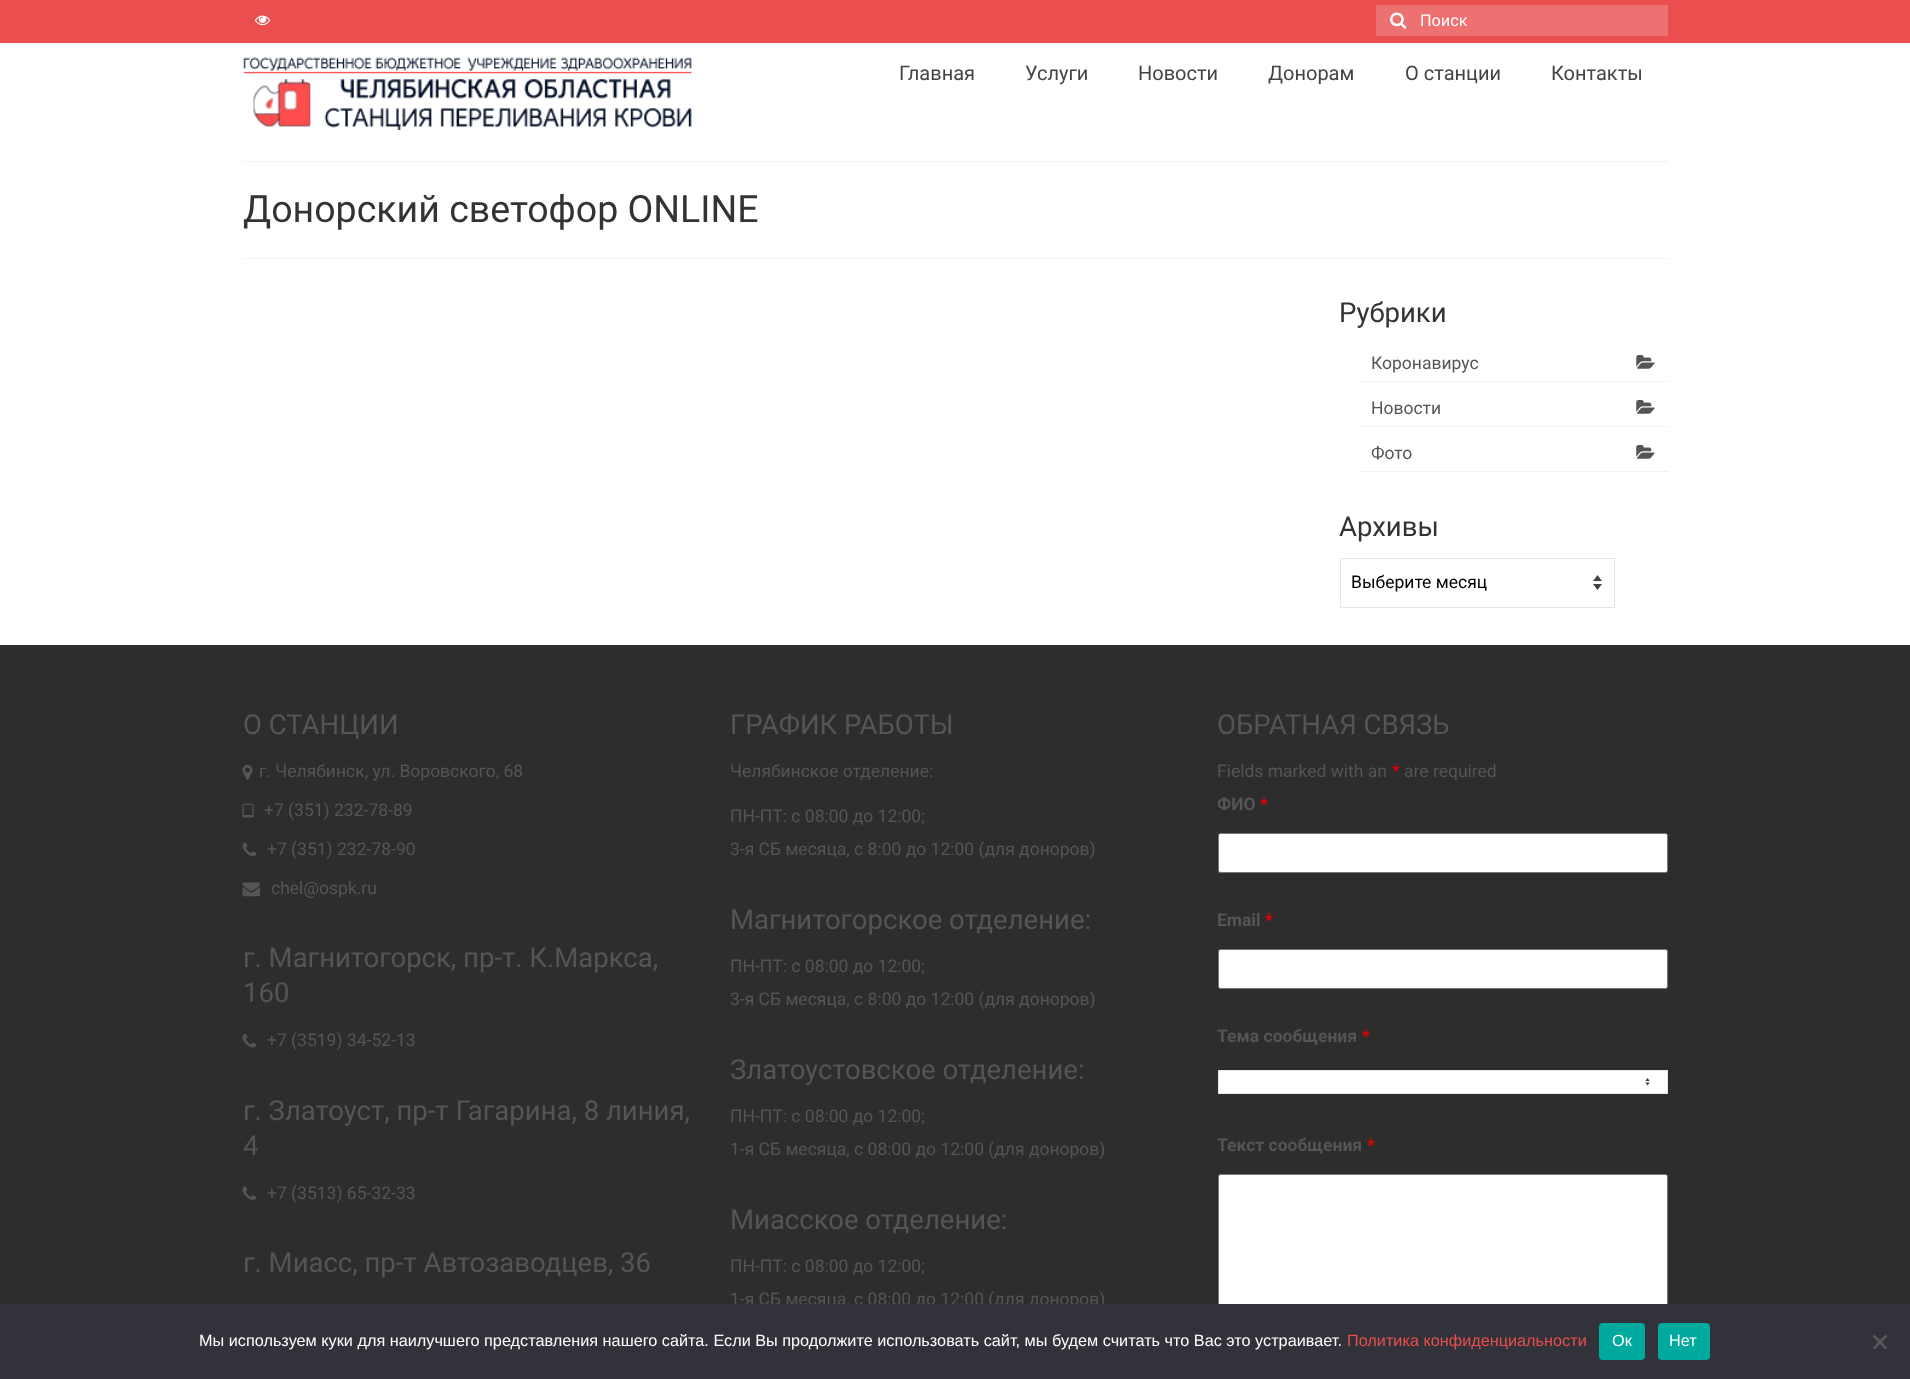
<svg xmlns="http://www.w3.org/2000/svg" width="1910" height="1379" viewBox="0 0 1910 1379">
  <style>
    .t1 { font: 16.25px Roboto; fill: #fff; }
    .t2 { font: 20px Roboto; fill: #444; }
    .t3 { font: 37.5px Roboto; fill: #333; }
    .t4 { font: 27.5px Roboto; fill: #333; }
    .t5 { font: 17.5px Roboto; fill: #555; }
    .t6 { font: 17.5px Roboto; fill: #000; }
    .t7 { font: 27.5px Roboto; fill: #555; }
    .t8 { font: 17.5px Roboto; fill: #e80000; }
    .t9 { font: bold 17.5px Roboto; fill: #555; }
    .t10 { font: bold 17.5px Roboto; fill: #e80000; }
    .t11 { font: 16.25px Liberation Sans; fill: #fff; }
    .t12 { font: 16.25px Liberation Sans; fill: #ea4e4e; }
  </style>
  <rect width="100%" height="100%" fill="#fff"/>
  <rect x="0" y="0" width="1910" height="43" fill="#ea4e4e"/>
  <image x="255" y="15" width="15" height="11" href="images/1.png"/>
  <rect x="1376" y="5" width="292" height="31" fill="#ee7171"/>
  <image x="1390" y="12" width="17" height="17" href="images/2.png"/>
  <text x="1420" y="26" class="t1">Поиск</text>
  <image x="243" y="57" width="449" height="73" href="images/3.png"/>
  <text x="899" y="80" class="t2">Главная</text>
  <text x="1025" y="80" class="t2">Услуги</text>
  <text x="1138" y="80" class="t2">Новости</text>
  <text x="1268" y="80" class="t2">Донорам</text>
  <text x="1405" y="80" class="t2">О станции</text>
  <text x="1551" y="80" class="t2">Контакты</text>
  <rect x="243" y="161" width="1425" height="1" fill="#f2f2f2"/>
  <rect x="243" y="258" width="1425" height="1" fill="#f2f2f2"/>
  <text x="243" y="222" class="t3">Донорский светофор ONLINE</text>
  <text x="1339" y="322" class="t4">Рубрики</text>
  <rect x="1359" y="381" width="309" height="1" fill="#f2f2f2"/>
  <text x="1371" y="369" class="t5">Коронавирус</text>
  <image x="1636" y="355" width="19" height="14" href="images/4.png"/>
  <rect x="1359" y="426" width="309" height="1" fill="#f2f2f2"/>
  <text x="1371" y="414" class="t5">Новости</text>
  <image x="1636" y="400" width="19" height="14" href="images/4.png"/>
  <rect x="1359" y="471" width="309" height="1" fill="#f2f2f2"/>
  <text x="1371" y="459" class="t5">Фото</text>
  <image x="1636" y="445" width="19" height="14" href="images/4.png"/>
  <text x="1339" y="536" class="t4">Архивы</text>
  <path d="M1593 581L1597.5 575L1602 581ZM1602 584L1597.5 590L1593 584Z" fill="#444"/>
  <rect x="1340.5" y="558.5" width="274" height="49" fill="none" stroke="#e6e6e6"/>
  <text x="1351" y="588" class="t6">Выберите месяц</text>
  <rect x="0" y="645" width="1910" height="659" fill="#2d2d2d"/>
  <text x="243" y="734" class="t7">О СТАНЦИИ</text>
  <image x="242" y="765" width="11" height="15" href="images/5.png"/>
  <text x="259" y="777" class="t5">г. Челябинск, ул. Воровского, 68</text>
  <image x="242" y="803" width="12" height="15" href="images/6.png"/>
  <text x="264" y="816" class="t5">+7 (351) 232-78-89</text>
  <image x="242" y="842" width="15" height="15" href="images/7.png"/>
  <text x="267" y="855" class="t5">+7 (351) 232-78-90</text>
  <image x="242" y="882" width="18" height="15" href="images/8.png"/>
  <text x="271" y="894" class="t5">chel@ospk.ru</text>
  <text x="243" y="967" class="t7">г. Магнитогорск, пр-т. К.Маркса,</text>
  <text x="243" y="1002" class="t7">160</text>
  <image x="242" y="1033" width="15" height="15" href="images/9.png"/>
  <text x="267" y="1046" class="t5">+7 (3519) 34-52-13</text>
  <text x="243" y="1120" class="t7">г. Златоуст, пр-т Гагарина, 8 линия,</text>
  <text x="243" y="1155" class="t7">4</text>
  <image x="242" y="1186" width="15" height="14" href="images/10.png"/>
  <text x="267" y="1199" class="t5">+7 (3513) 65-32-33</text>
  <text x="243" y="1272" class="t7">г. Миасс, пр-т Автозаводцев, 36</text>
  <image x="244" y="1303" width="2" height="1" href="images/11.png"/>
  <text x="730" y="734" class="t7">ГРАФИК РАБОТЫ</text>
  <text x="730" y="777" class="t5">Челябинское отделение:</text>
  <text x="730" y="822" class="t5">ПН-ПТ: с 08:00 до 12:00;</text>
  <text x="730" y="855" class="t5">3-я СБ месяца, с 8:00 до 12:00 (для доноров)</text>
  <text x="730" y="929" class="t7">Магнитогорское отделение:</text>
  <text x="730" y="972" class="t5">ПН-ПТ: с 08:00 до 12:00;</text>
  <text x="730" y="1005" class="t5">3-я СБ месяца, с 8:00 до 12:00 (для доноров)</text>
  <text x="730" y="1079" class="t7">Златоустовское отделение:</text>
  <text x="730" y="1122" class="t5">ПН-ПТ: с 08:00 до 12:00;</text>
  <text x="730" y="1155" class="t5">1-я СБ месяца, с 08:00 до 12:00 (для доноров)</text>
  <text x="730" y="1229" class="t7">Миасское отделение:</text>
  <text x="730" y="1272" class="t5">ПН-ПТ: с 08:00 до 12:00;</text>
  <text x="730" y="1305" class="t5">1-я СБ месяца, с 08:00 до 12:00 (для доноров)</text>
  <text x="1217" y="734" class="t7">ОБРАТНАЯ СВЯЗЬ</text>
  <text x="1217" y="777" class="t5">Fields marked with an</text>
  <text x="1392" y="777" class="t8">*</text>
  <text x="1404" y="777" class="t5">are required</text>
  <text x="1217" y="810" class="t9">ФИО</text>
  <text x="1260" y="810" class="t10">*</text>
  <rect x="1218.5" y="833.5" width="449" height="39" rx="2" fill="#fff" stroke="#767676"/>
  <text x="1217" y="926" class="t9">Email</text>
  <text x="1265" y="926" class="t10">*</text>
  <rect x="1218.5" y="949.5" width="449" height="39" rx="2" fill="#fff" stroke="#767676"/>
  <text x="1217" y="1042" class="t9">Тема сообщения</text>
  <text x="1362" y="1042" class="t10">*</text>
  <rect x="1219" y="1071" width="448" height="22" fill="#fff"/>
  <image x="1645" y="1078" width="5" height="8" href="images/12.png"/>
  <rect x="1218.5" y="1070.5" width="449" height="23" fill="none" stroke="#e6e6e6"/>
  <text x="1217" y="1151" class="t9">Текст сообщения</text>
  <text x="1367" y="1151" class="t10">*</text>
  <rect x="1218.5" y="1174.5" width="449" height="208" rx="2" fill="#fff" stroke="#767676"/>
  <rect x="0" y="1304" width="1910" height="75" fill="#32323a"/>
  <text x="199" y="1346" class="t11">Мы используем куки для наилучшего представления нашего сайта. Если Вы продолжите использовать сайт, мы будем считать что Вас это устраивает.</text>
  <text x="1347" y="1346" class="t12">Политика конфиденциальности</text>
  <rect x="1599" y="1323" width="46" height="37" rx="4" fill="#00a99d"/>
  <text x="1612" y="1346" class="t11">Ок</text>
  <rect x="1658" y="1323" width="52" height="37" rx="4" fill="#00a99d"/>
  <text x="1669" y="1346" class="t11">Нет</text>
  <path d="M1885.5 1334.5L1887.5 1336.5L1874.5 1349.5L1872.5 1348Z" fill="#59595d"/>
  <path d="M1872.5 1336.5L1874.5 1334.5L1887.5 1348L1885.5 1349.5Z" fill="#59595d"/>
</svg>
